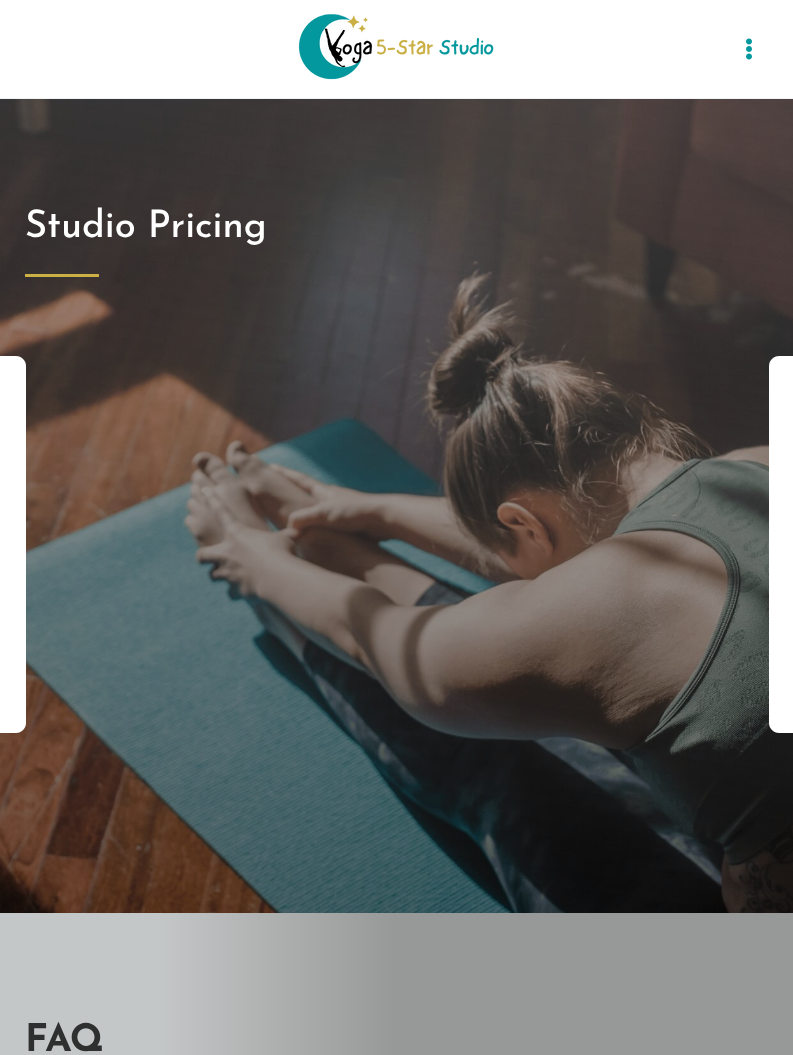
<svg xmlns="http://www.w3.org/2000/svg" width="793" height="1055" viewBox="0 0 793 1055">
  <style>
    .t1 { font: 500 38px Josefin Sans; fill: #fff; }
    .t2 { font: bold 38px Josefin Sans; fill: #2e3030; }
  </style>
  <defs>
    <linearGradient id="g1" gradientUnits="userSpaceOnUse" x1="0" y1="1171" x2="793" y2="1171"><stop offset="0.2" stop-color="#c4c7c7"/><stop offset="0.5" stop-color="#979898"/></linearGradient>
  </defs>
  <rect width="100%" height="100%" fill="#fff"/>
  <rect x="0" y="98" width="793" height="1" fill="#edf2f7"/>
  <image x="298" y="14" width="196" height="66" href="images/1.png"/>
  <image x="746" y="38" width="6" height="22" href="images/2.png"/>
  <image x="0" y="99" width="793" height="814" href="images/3.png"/>
  <text x="25" y="237" class="t1">Studio Pricing</text>
  <rect x="25" y="274" width="74" height="3" fill="#cbb045"/>
  <path d="M0 356H16C21.5 356 26 360.5 26 366V723C26 728.5 21.5 733 16 733H0Z" fill="#fff"/>
  <path d="M779 356H793V733H779C773.5 733 769 728.5 769 723V366C769 360.5 773.5 356 779 356Z" fill="#fff"/>
  <rect x="0" y="913" width="793" height="142" fill="url(#g1)"/>
  <text x="25" y="1051" class="t2">FAQ</text>
</svg>
